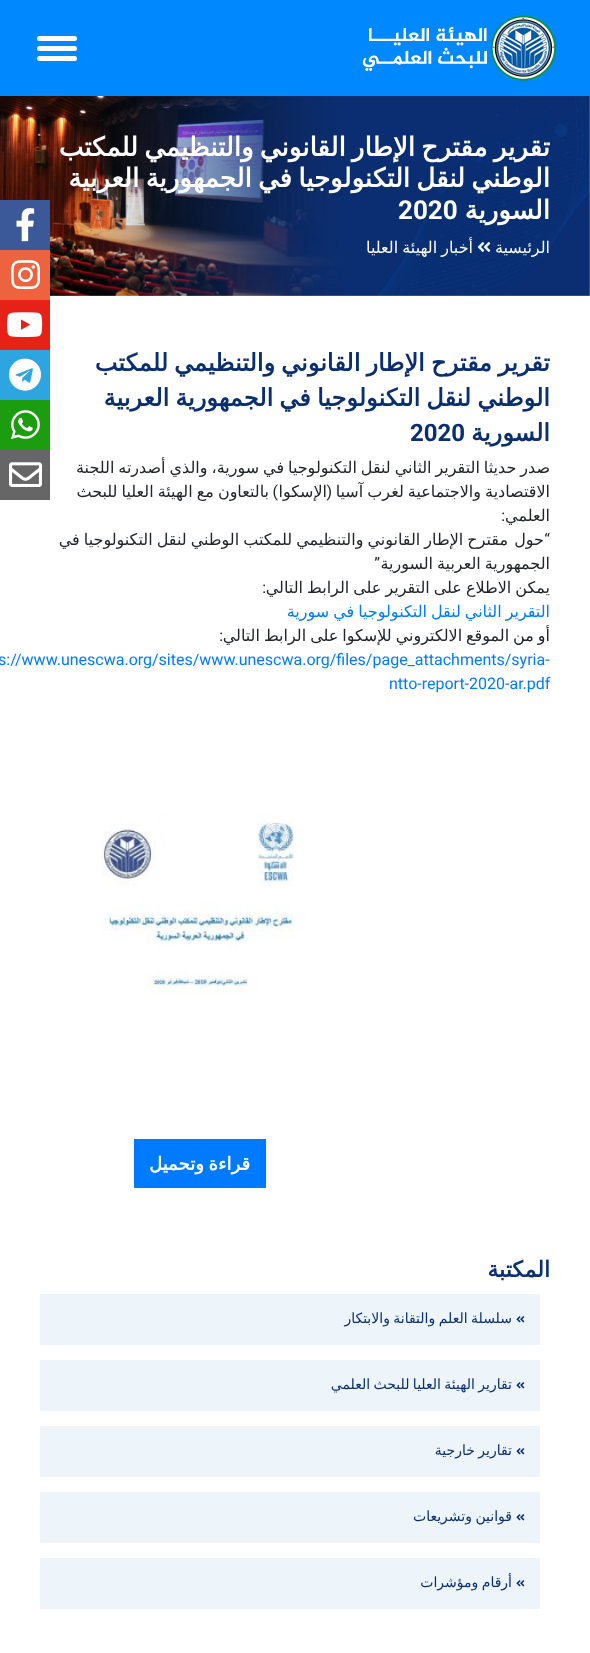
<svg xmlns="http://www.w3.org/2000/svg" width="590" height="1653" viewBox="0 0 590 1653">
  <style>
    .t1 { font: bold 26px DejaVu Sans; direction: rtl; fill: #fff; }
    .t2 { font: bold 26px Roboto; fill: #fff; }
    .t3 { font: 16px DejaVu Sans; direction: rtl; fill: #fff; }
    .t4 { font: bold 24px DejaVu Sans; direction: rtl; fill: #0a2e72; }
    .t5 { font: bold 24px Roboto; fill: #0a2e72; }
    .t6 { font: 16px DejaVu Sans; direction: rtl; fill: #212529; }
    .t7 { font: 16px Roboto; direction: rtl; fill: #212529; }
    .t8 { font: 16px DejaVu Sans; direction: rtl; fill: #007bff; }
    .t9 { font: 16px Roboto; fill: #007bff; }
    .t10 { font: bold 18px DejaVu Sans; direction: rtl; fill: #fff; }
    .t11 { font: bold 22px DejaVu Sans; direction: rtl; fill: #0a2e72; }
    .t12 { font: 14px DejaVu Sans; direction: rtl; fill: #0a2e72; }
  </style>
  <rect width="100%" height="100%" fill="#fff"/>
  <rect x="0" y="0" width="590" height="96" fill="#08f"/>
  <image x="362" y="15" width="194" height="66" href="images/1.png"/>
  <rect x="37" y="36" width="40" height="5" rx="2.5" fill="#fff"/>
  <rect x="37" y="46" width="40" height="5" rx="2.5" fill="#fff"/>
  <rect x="37" y="56" width="40" height="5" rx="2.5" fill="#fff"/>
  <image x="0" y="96" width="590" height="200" href="images/2.png"/>
  <text x="550" y="156" word-spacing="-2" class="t1">تقرير مقترح الإطار القانوني والتنظيمي للمكتب</text>
  <text x="550" y="187" word-spacing="-2" class="t1">الوطني لنقل التكنولوجيا في الجمهورية العربية</text>
  <text x="550" y="219" class="t1">السورية</text>
  <text x="398" y="219" class="t2">2020</text>
  <text x="550" y="253" class="t3">الرئيسية</text>
  <image x="477" y="242" width="14" height="10" href="images/3.png"/>
  <text x="473" y="253" word-spacing="-1" class="t3">أخبار الهيئة العليا</text>
  <text x="550" y="371" word-spacing="-1.5" class="t4">تقرير مقترح الإطار القانوني والتنظيمي للمكتب</text>
  <text x="550" y="406" word-spacing="-1.5" class="t4">الوطني لنقل التكنولوجيا في الجمهورية العربية</text>
  <text x="550" y="441" class="t4">السورية</text>
  <text x="410" y="441" class="t5">2020</text>
  <text x="550" y="473" word-spacing="-1.1" class="t6">صدر حديثا التقرير الثاني لنقل التكنولوجيا في سورية، والذي أصدرته اللجنة</text>
  <text x="550" y="497" word-spacing="-1" class="t6">الاقتصادية والاجتماعية لغرب آسيا</text>
  <text x="332" y="497" class="t7">(</text>
  <text x="327" y="497" class="t6">الإسكوا</text>
  <text x="278" y="497" class="t7">)</text>
  <text x="269" y="497" word-spacing="-1" class="t6">بالتعاون مع الهيئة العليا للبحث</text>
  <text x="550" y="521" class="t6">العلمي</text>
  <text x="505" y="521" class="t7">:</text>
  <text x="550" y="545" class="t7">“</text>
  <text x="544" y="545" class="t6">حول</text>
  <text x="508" y="545" word-spacing="-1" class="t6">مقترح الإطار القانوني والتنظيمي للمكتب الوطني لنقل التكنولوجيا في</text>
  <text x="550" y="569" word-spacing="-1.1" class="t6">الجمهورية العربية السورية</text>
  <text x="380" y="569" class="t7">”</text>
  <text x="550" y="593" word-spacing="-1.1" class="t6">يمكن الاطلاع على التقرير على الرابط التالي</text>
  <text x="266" y="593" class="t7">:</text>
  <text x="550" y="617" word-spacing="-1.1" class="t8">التقرير الثاني لنقل التكنولوجيا في سورية</text>
  <text x="550" y="641" word-spacing="-1.1" class="t6">أو من الموقع الالكتروني للإسكوا على الرابط التالي</text>
  <text x="223" y="641" class="t7">:</text>
  <text x="-2" y="665" class="t9">s://www.unescwa.org/sites/www.unescwa.org/files/page_attachments/syria-</text>
  <text x="389" y="689" class="t9">ntto-report-2020-ar.pdf</text>
  <image x="101" y="813" width="193" height="183" href="images/4.png"/>
  <rect x="134" y="1139" width="132" height="49" fill="#007bff"/>
  <text x="250" y="1170" word-spacing="-1" class="t10">قراءة وتحميل</text>
  <text x="550" y="1277" class="t11">المكتبة</text>
  <rect x="40" y="1294" width="500" height="51" fill="#edf4fa"/>
  <image x="516" y="1316" width="9" height="7" href="images/5.png"/>
  <text x="512" y="1323" word-spacing="-1" class="t12">سلسلة العلم والتقانة والابتكار</text>
  <rect x="40" y="1360" width="500" height="51" fill="#edf4fa"/>
  <image x="516" y="1382" width="9" height="7" href="images/5.png"/>
  <text x="512" y="1389" word-spacing="-1" class="t12">تقارير الهيئة العليا للبحث العلمي</text>
  <rect x="40" y="1426" width="500" height="51" fill="#edf4fa"/>
  <image x="516" y="1448" width="9" height="7" href="images/5.png"/>
  <text x="512" y="1455" word-spacing="-1" class="t12">تقارير خارجية</text>
  <rect x="40" y="1492" width="500" height="51" fill="#edf4fa"/>
  <image x="516" y="1514" width="9" height="7" href="images/5.png"/>
  <text x="512" y="1521" word-spacing="-1" class="t12">قوانين وتشريعات</text>
  <rect x="40" y="1558" width="500" height="51" fill="#edf4fa"/>
  <image x="516" y="1580" width="9" height="7" href="images/5.png"/>
  <text x="512" y="1587" word-spacing="-1" class="t12">أرقام ومؤشرات</text>
  <rect x="0" y="200" width="50" height="50" fill="#3b5998"/>
  <image x="16" y="208" width="19" height="34" href="images/6.png"/>
  <rect x="0" y="250" width="50" height="50" fill="#ed6340"/>
  <image x="11" y="260" width="29" height="30" href="images/7.png"/>
  <rect x="0" y="300" width="50" height="50" fill="#e62117"/>
  <image x="6" y="312" width="37" height="25" href="images/8.png"/>
  <rect x="0" y="350" width="50" height="50" fill="#2ca5e0"/>
  <image x="9" y="358" width="32" height="33" href="images/9.png"/>
  <rect x="0" y="400" width="50" height="50" fill="#1c9c0f"/>
  <image x="11" y="410" width="29" height="29" href="images/10.png"/>
  <rect x="0" y="450" width="50" height="50" fill="#666"/>
  <image x="9" y="462" width="33" height="25" href="images/11.png"/>
</svg>
